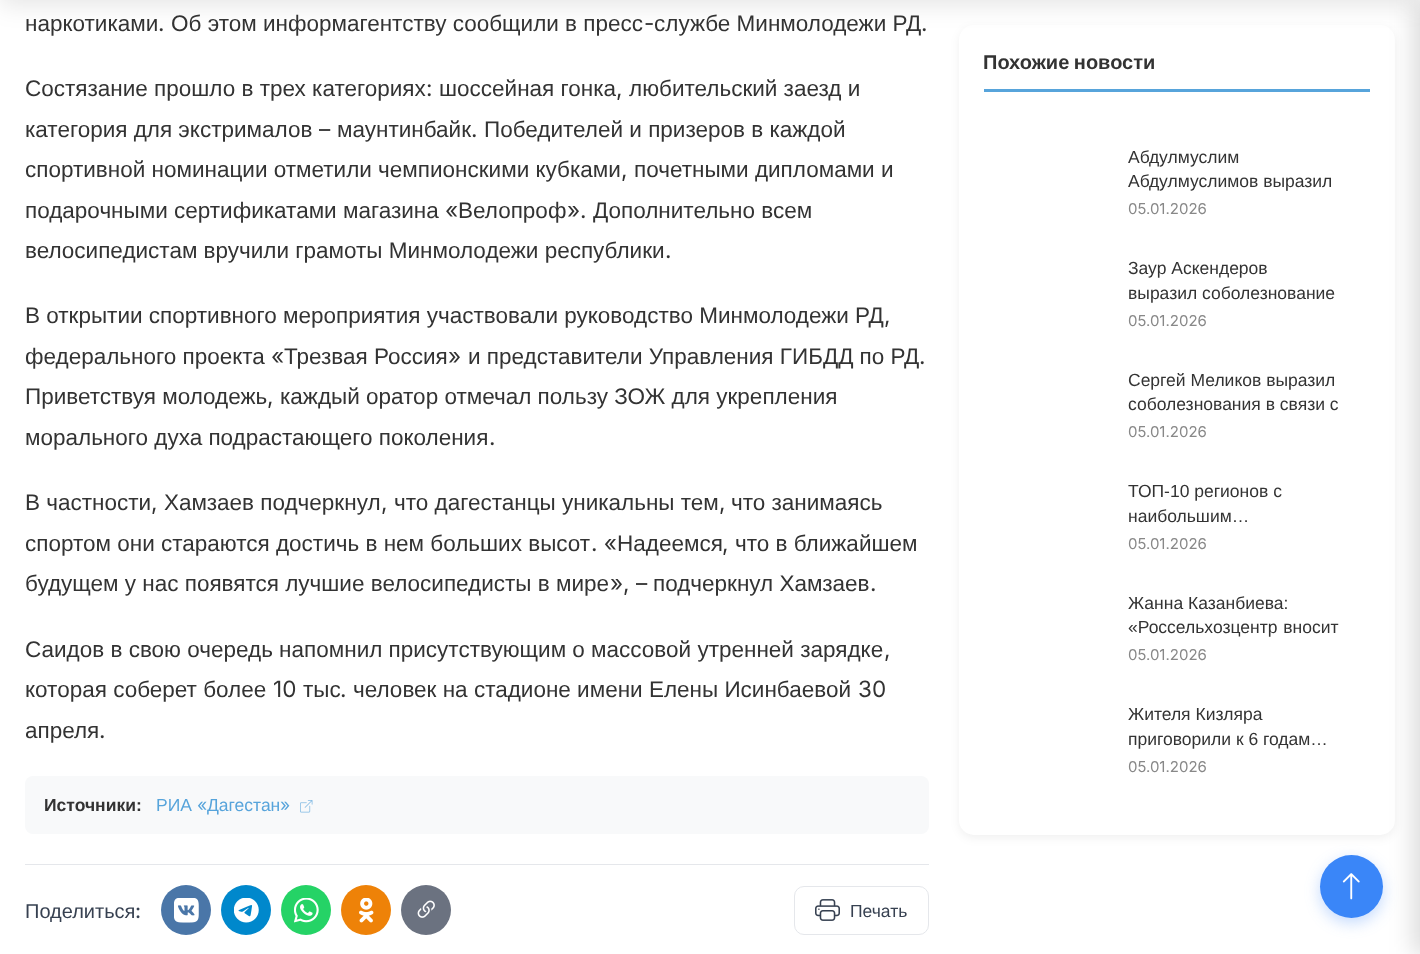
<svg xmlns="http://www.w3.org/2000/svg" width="1420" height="954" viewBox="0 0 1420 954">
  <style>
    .t1 { font: 22.5px Liberation Sans; fill: #333; }
    .t2 { font: 22.5px Inter; fill: #333; }
    .t3 { font: bold 17.5px Liberation Sans; fill: #333; }
    .t4 { font: 17.5px Liberation Sans; fill: #57a4db; }
    .t5 { font: 17.5px Inter; fill: #57a4db; }
    .t6 { font: 20px Liberation Sans; fill: #374151; }
    .t7 { font: 500 20px Inter; fill: #374151; }
    .t8 { font: 17.5px Liberation Sans; fill: #374151; }
    .t9 { font: bold 20px Liberation Sans; fill: #333; }
    .t10 { font: 17.5px Liberation Sans; fill: #333; }
    .t11 { font: 15px Inter; fill: #888; }
  </style>
  <rect width="100%" height="100%" fill="#fff"/>
  <rect x="959" y="28" width="436" height="810" rx="15" fill="#0000000f" filter="blur(5px)"/>
  <rect x="959" y="25" width="436" height="810" rx="15" fill="#fff"/>
  <rect x="0" y="-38" width="1420" height="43" fill="#0000001a" filter="blur(12.5px)"/>
  <text x="25" y="31" class="t1">наркотиками</text>
  <text x="171" y="31" class="t1">Об этом информагентству сообщили в пресс</text>
  <text x="644" y="31" class="t2">-</text>
  <text x="654" y="31" class="t1">службе Минмолодежи РД</text>
  <text x="158" y="31" class="t2">.</text>
  <text x="921" y="31" class="t2">.</text>
  <text x="25" y="96" class="t1">Состязание прошло в трех категориях</text>
  <text x="426" y="96" class="t2">:</text>
  <text x="439" y="96" class="t1">шоссейная гонка</text>
  <text x="616" y="96" class="t2">,</text>
  <text x="629" y="96" class="t1">любительский заезд и</text>
  <text x="25" y="137" class="t1">категория для экстрималов</text>
  <text x="319" y="137" class="t2">–</text>
  <text x="337" y="137" class="t1">маунтинбайк</text>
  <text x="484" y="137" class="t1">Победителей и призеров в каждой</text>
  <text x="471" y="137" class="t2">.</text>
  <text x="25" y="177" class="t1">спортивной номинации отметили чемпионскими кубками</text>
  <text x="621" y="177" class="t2">,</text>
  <text x="634" y="177" class="t1">почетными дипломами и</text>
  <text x="25" y="218" class="t1">подарочными сертификатами магазина</text>
  <text x="445" y="218" class="t2">«</text>
  <text x="458" y="218" class="t1">Велопроф</text>
  <text x="567" y="218" class="t2">».</text>
  <text x="593" y="218" class="t1">Дополнительно всем</text>
  <text x="25" y="258" class="t1">велосипедистам вручили грамоты Минмолодежи республики</text>
  <text x="665" y="258" class="t2">.</text>
  <text x="25" y="323" class="t1">В открытии спортивного мероприятия участвовали руководство Минмолодежи РД</text>
  <text x="884" y="323" class="t2">,</text>
  <text x="25" y="364" class="t1">федерального проекта</text>
  <text x="271" y="364" class="t2">«</text>
  <text x="284" y="364" class="t1">Трезвая Россия</text>
  <text x="448" y="364" class="t2">»</text>
  <text x="468" y="364" class="t1">и представители Управления ГИБДД по РД</text>
  <text x="919" y="364" class="t2">.</text>
  <text x="25" y="404" class="t1">Приветствуя молодежь</text>
  <text x="267" y="404" class="t2">,</text>
  <text x="280" y="404" class="t1">каждый оратор отмечал пользу ЗОЖ для укрепления</text>
  <text x="25" y="445" class="t1">морального духа подрастающего поколения</text>
  <text x="489" y="445" class="t2">.</text>
  <text x="25" y="510" class="t1">В частности</text>
  <text x="151" y="510" class="t2">,</text>
  <text x="164" y="510" class="t1">Хамзаев подчеркнул</text>
  <text x="381" y="510" class="t2">,</text>
  <text x="394" y="510" class="t1">что дагестанцы уникальны тем</text>
  <text x="719" y="510" class="t2">,</text>
  <text x="731" y="510" class="t1">что занимаясь</text>
  <text x="25" y="551" class="t1">спортом они стараются достичь в нем больших высот</text>
  <text x="591" y="551" class="t2">. «</text>
  <text x="617" y="551" class="t1">Надеемся</text>
  <text x="722" y="551" class="t2">,</text>
  <text x="735" y="551" class="t1">что в ближайшем</text>
  <text x="25" y="591" class="t1">будущем у нас появятся лучшие велосипедисты в мире</text>
  <text x="610" y="591" class="t2">», –</text>
  <text x="653" y="591" class="t1">подчеркнул Хамзаев</text>
  <text x="870" y="591" class="t2">.</text>
  <text x="25" y="657" class="t1">Саидов в свою очередь напомнил присутствующим о массовой утренней зарядке</text>
  <text x="884" y="657" class="t2">,</text>
  <text x="25" y="697" class="t1">которая соберет более</text>
  <text x="273" y="697" class="t2">10</text>
  <text x="303" y="697" class="t1">тыс</text>
  <text x="340" y="697" class="t2">.</text>
  <text x="353" y="697" class="t1">человек на стадионе имени Елены Исинбаевой</text>
  <text x="858" y="697" class="t2">30</text>
  <text x="25" y="738" class="t1">апреля</text>
  <text x="99" y="738" class="t2">.</text>
  <rect x="25" y="776" width="904" height="58" rx="8" fill="#f8f9fa"/>
  <text x="44" y="811" class="t3">Источники:</text>
  <text x="156" y="811" class="t4">РИА</text>
  <text x="197" y="811" class="t5">«</text>
  <text x="207" y="811" class="t4">Дагестан</text>
  <text x="280" y="811" class="t5">»</text>
  <image x="300" y="800" width="13" height="13" href="images/1.png"/>
  <rect x="25" y="864" width="904" height="1" fill="#e5e7eb"/>
  <text x="25" y="918" class="t6">Поделиться</text>
  <text x="135" y="918" class="t7">:</text>
  <circle cx="186" cy="910" r="25" fill="#4a76a8"/>
  <image x="174" y="898" width="25" height="25" href="images/2.png"/>
  <circle cx="246" cy="910" r="25" fill="#08c"/>
  <image x="234" y="898" width="25" height="25" href="images/3.png"/>
  <circle cx="306" cy="910" r="25" fill="#25d366"/>
  <image x="294" y="898" width="25" height="25" href="images/4.png"/>
  <circle cx="366" cy="910" r="25" fill="#ee8208"/>
  <image x="359" y="898" width="15" height="25" href="images/5.png"/>
  <circle cx="426" cy="910" r="25" fill="#6b7280"/>
  <image x="417" y="900" width="18" height="18" href="images/6.png"/>
  <rect x="794.5" y="886.5" width="134" height="48" rx="9.5" fill="none" stroke="#e5e7eb"/>
  <image x="815" y="899" width="25" height="22" href="images/7.png"/>
  <text x="850" y="917" class="t8">Печать</text>
  <rect x="984" y="89" width="386" height="3" fill="#57a4db"/>
  <text x="983" y="69" word-spacing="-1" class="t9">Похожие новости</text>
  <text x="1128" y="163" class="t10">Абдулмуслим</text>
  <text x="1128" y="187" class="t10">Абдулмуслимов выразил</text>
  <text x="1128" y="214" class="t11">05.01.2026</text>
  <text x="1128" y="274" class="t10">Заур Аскендеров</text>
  <text x="1128" y="299" class="t10">выразил соболезнование</text>
  <text x="1128" y="326" class="t11">05.01.2026</text>
  <text x="1128" y="386" class="t10">Сергей Меликов выразил</text>
  <text x="1128" y="410" class="t10">соболезнования в связи с</text>
  <text x="1128" y="437" class="t11">05.01.2026</text>
  <text x="1128" y="497" class="t10">ТОП-10 регионов с</text>
  <text x="1128" y="522" class="t10">наибольшим…</text>
  <text x="1128" y="549" class="t11">05.01.2026</text>
  <text x="1128" y="609" class="t10">Жанна Казанбиева:</text>
  <text x="1128" y="633" word-spacing="1" class="t10">«Россельхозцентр вносит</text>
  <text x="1128" y="660" class="t11">05.01.2026</text>
  <text x="1128" y="720" class="t10">Жителя Кизляра</text>
  <text x="1128" y="745" class="t10">приговорили к 6 годам…</text>
  <text x="1128" y="772" class="t11">05.01.2026</text>
  <rect x="1320" y="860" width="63" height="63" rx="31.5" fill="#3a86f84d" filter="blur(7.5px)"/>
  <circle cx="1351.5" cy="886.5" r="31.5" fill="#3a86f8"/>
  <rect x="1414" y="0" width="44" height="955" fill="#00000026" filter="blur(12.5px)"/>
  <image x="1342" y="873" width="18" height="27" href="images/8.png"/>
</svg>
